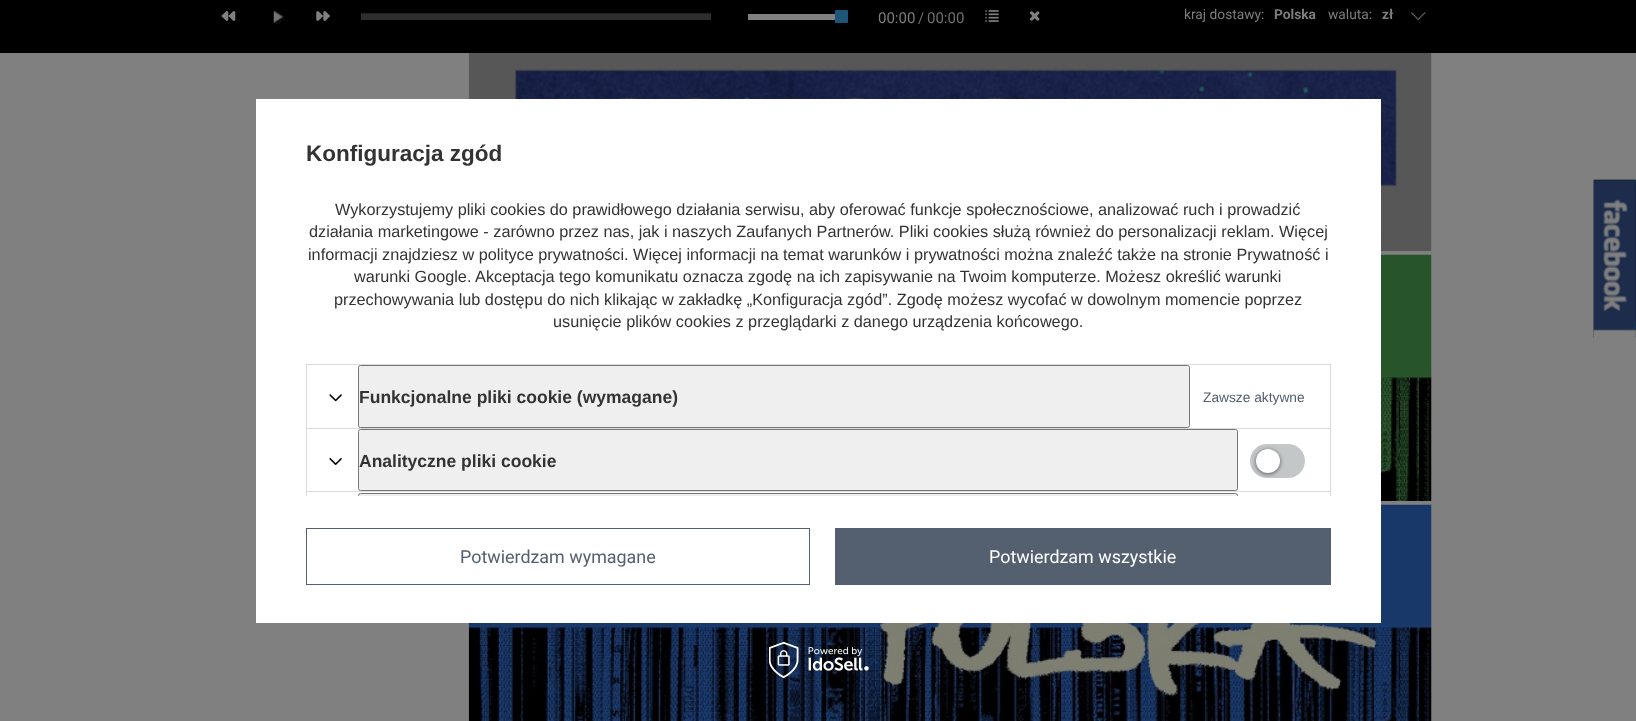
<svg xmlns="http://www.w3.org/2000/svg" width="1636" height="721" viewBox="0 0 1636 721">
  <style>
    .t1 { font: 15px Roboto; fill: #7d7d7d; }
    .t2 { font: 15px Roboto; fill: #6f6f6f; }
    .t3 { font: 13.75px Roboto; fill: #7d7d7d; }
    .t4 { font: bold 13.75px Roboto; fill: #7d7d7d; }
    .t5 { font: bold 22.5px Liberation Sans; fill: #333; }
    .t6 { font: 16.25px Liberation Sans; fill: #333; }
    .t7 { font: bold 17.5px Liberation Sans; fill: #333; }
    .t8 { font: 13.75px Liberation Sans; fill: #546070; }
    .t9 { font: 17.9px Roboto; fill: #546070; }
    .t10 { font: 17.9px Roboto; fill: #fff; }
  </style>
  <defs>
    <clipPath id="clip1"><rect x="294" y="136" width="1050" height="360"/></clipPath>
  </defs>
  <rect width="100%" height="100%" fill="#808080"/>
  <rect x="0" y="0" width="1636" height="53" fill="#000"/>
  <image x="221" y="11" width="15" height="10" href="images/1.png"/>
  <image x="273" y="11" width="11" height="13" href="images/2.png"/>
  <image x="316" y="11" width="15" height="10" href="images/3.png"/>
  <rect x="361" y="14" width="350" height="6" fill="#2d2d2d"/>
  <rect x="361" y="13" width="350" height="1" fill="#202020"/>
  <rect x="748" y="14" width="87" height="6" fill="#808080"/>
  <rect x="835" y="10" width="13" height="13" rx="1" fill="#1e567a"/>
  <text x="878" y="23" class="t1">00:00</text>
  <text x="918" y="23" class="t2">/</text>
  <text x="927" y="23" class="t2">00:00</text>
  <image x="985" y="10" width="14" height="12" href="images/4.png"/>
  <image x="1030" y="11" width="10" height="10" href="images/5.png"/>
  <text x="1184" y="19" class="t3">kraj dostawy:</text>
  <text x="1274" y="19" class="t4">Polska</text>
  <text x="1328" y="19" class="t3">waluta:</text>
  <text x="1382" y="19" class="t4">zł</text>
  <image x="1411" y="12" width="15" height="9" href="images/6.png"/>
  <image x="468" y="53" width="964" height="198" href="images/7.png"/>
  <image x="1381" y="254" width="51" height="247" href="images/8.png"/>
  <image x="468" y="504" width="964" height="217" href="images/9.png"/>
  <rect x="256" y="99" width="1125" height="524" fill="#fff"/>
  <text x="306" y="161" class="t5">Konfiguracja zgód</text>
  <text x="335" y="215" class="t6">Wykorzystujemy pliki cookies do prawidłowego działania serwisu, aby oferować funkcje społecznościowe, analizować ruch i prowadzić</text>
  <text x="309" y="237" class="t6">działania marketingowe - zarówno przez nas, jak i naszych Zaufanych Partnerów. Pliki cookies służą również do personalizacji reklam. Więcej</text>
  <text x="308" y="260" class="t6">informacji znajdziesz w polityce prywatności. Więcej informacji na temat warunków i prywatności można znaleźć także na stronie Prywatność i</text>
  <text x="354" y="282" class="t6">warunki Google. Akceptacja tego komunikatu oznacza zgodę na ich zapisywanie na Twoim komputerze. Możesz określić warunki</text>
  <text x="334" y="305" class="t6">przechowywania lub dostępu do nich klikając w zakładkę „Konfiguracja zgód”. Zgodę możesz wycofać w dowolnym momencie poprzez</text>
  <text x="553" y="327" class="t6">usunięcie plików cookies z przeglądarki z danego urządzenia końcowego.</text>
  <rect x="306" y="364" width="1025" height="1" fill="#dbdbdb"/>
  <rect x="1330" y="364" width="1" height="64" fill="#dbdbdb"/>
  <rect x="306" y="364" width="1" height="64" fill="#dbdbdb"/>
  <rect x="358.5" y="365.5" width="831" height="62" rx="2" fill="#efefef" stroke="#767676"/>
  <image x="329" y="394" width="13" height="8" href="images/10.png"/>
  <text x="359" y="403" class="t7">Funkcjonalne pliki cookie (wymagane)</text>
  <text x="1203" y="402" class="t8">Zawsze aktywne</text>
  <rect x="306" y="428" width="1025" height="1" fill="#dbdbdb"/>
  <rect x="1330" y="428" width="1" height="63" fill="#dbdbdb"/>
  <rect x="306" y="428" width="1" height="63" fill="#dbdbdb"/>
  <rect x="358.5" y="429.5" width="879" height="61" rx="2" fill="#efefef" stroke="#767676"/>
  <image x="329" y="458" width="13" height="7" href="images/11.png"/>
  <text x="359" y="467" class="t7">Analityczne pliki cookie</text>
  <rect x="1250" y="444" width="55" height="34" rx="17" fill="#c4c7c8"/>
  <rect x="1256" y="450" width="24" height="24" rx="12" fill="#0000008f" filter="blur(2px)"/>
  <circle cx="1268" cy="461" r="12" fill="#fff"/>
  <rect x="306.5" y="528.5" width="503" height="56" fill="none" stroke="#546070"/>
  <text x="460" y="563" class="t9">Potwierdzam wymagane</text>
  <rect x="835" y="528" width="496" height="57" fill="#546070"/>
  <text x="989" y="563" class="t10">Potwierdzam wszystkie</text>
  <g clip-path="url(#clip1)">
    <rect x="306.5" y="491.5" width="1024" height="64" fill="none" stroke="#dbdbdb"/>
  </g>
  <path d="M360.5 493H1235.5C1237 493 1238 494 1238 495.5V496H358V495.5C358 494 359 493 360.5 493Z" fill="#efefef"/>
  <g clip-path="url(#clip1)">
    <rect x="358.5" y="493.5" width="879" height="61" rx="2" fill="none" stroke="#767676"/>
  </g>
  <image x="769" y="642" width="100" height="36" href="images/12.png"/>
  <image x="1593" y="179" width="43" height="159" href="images/13.png"/>
  <image x="1593" y="179" width="43" height="159" href="images/14.png"/>
</svg>
